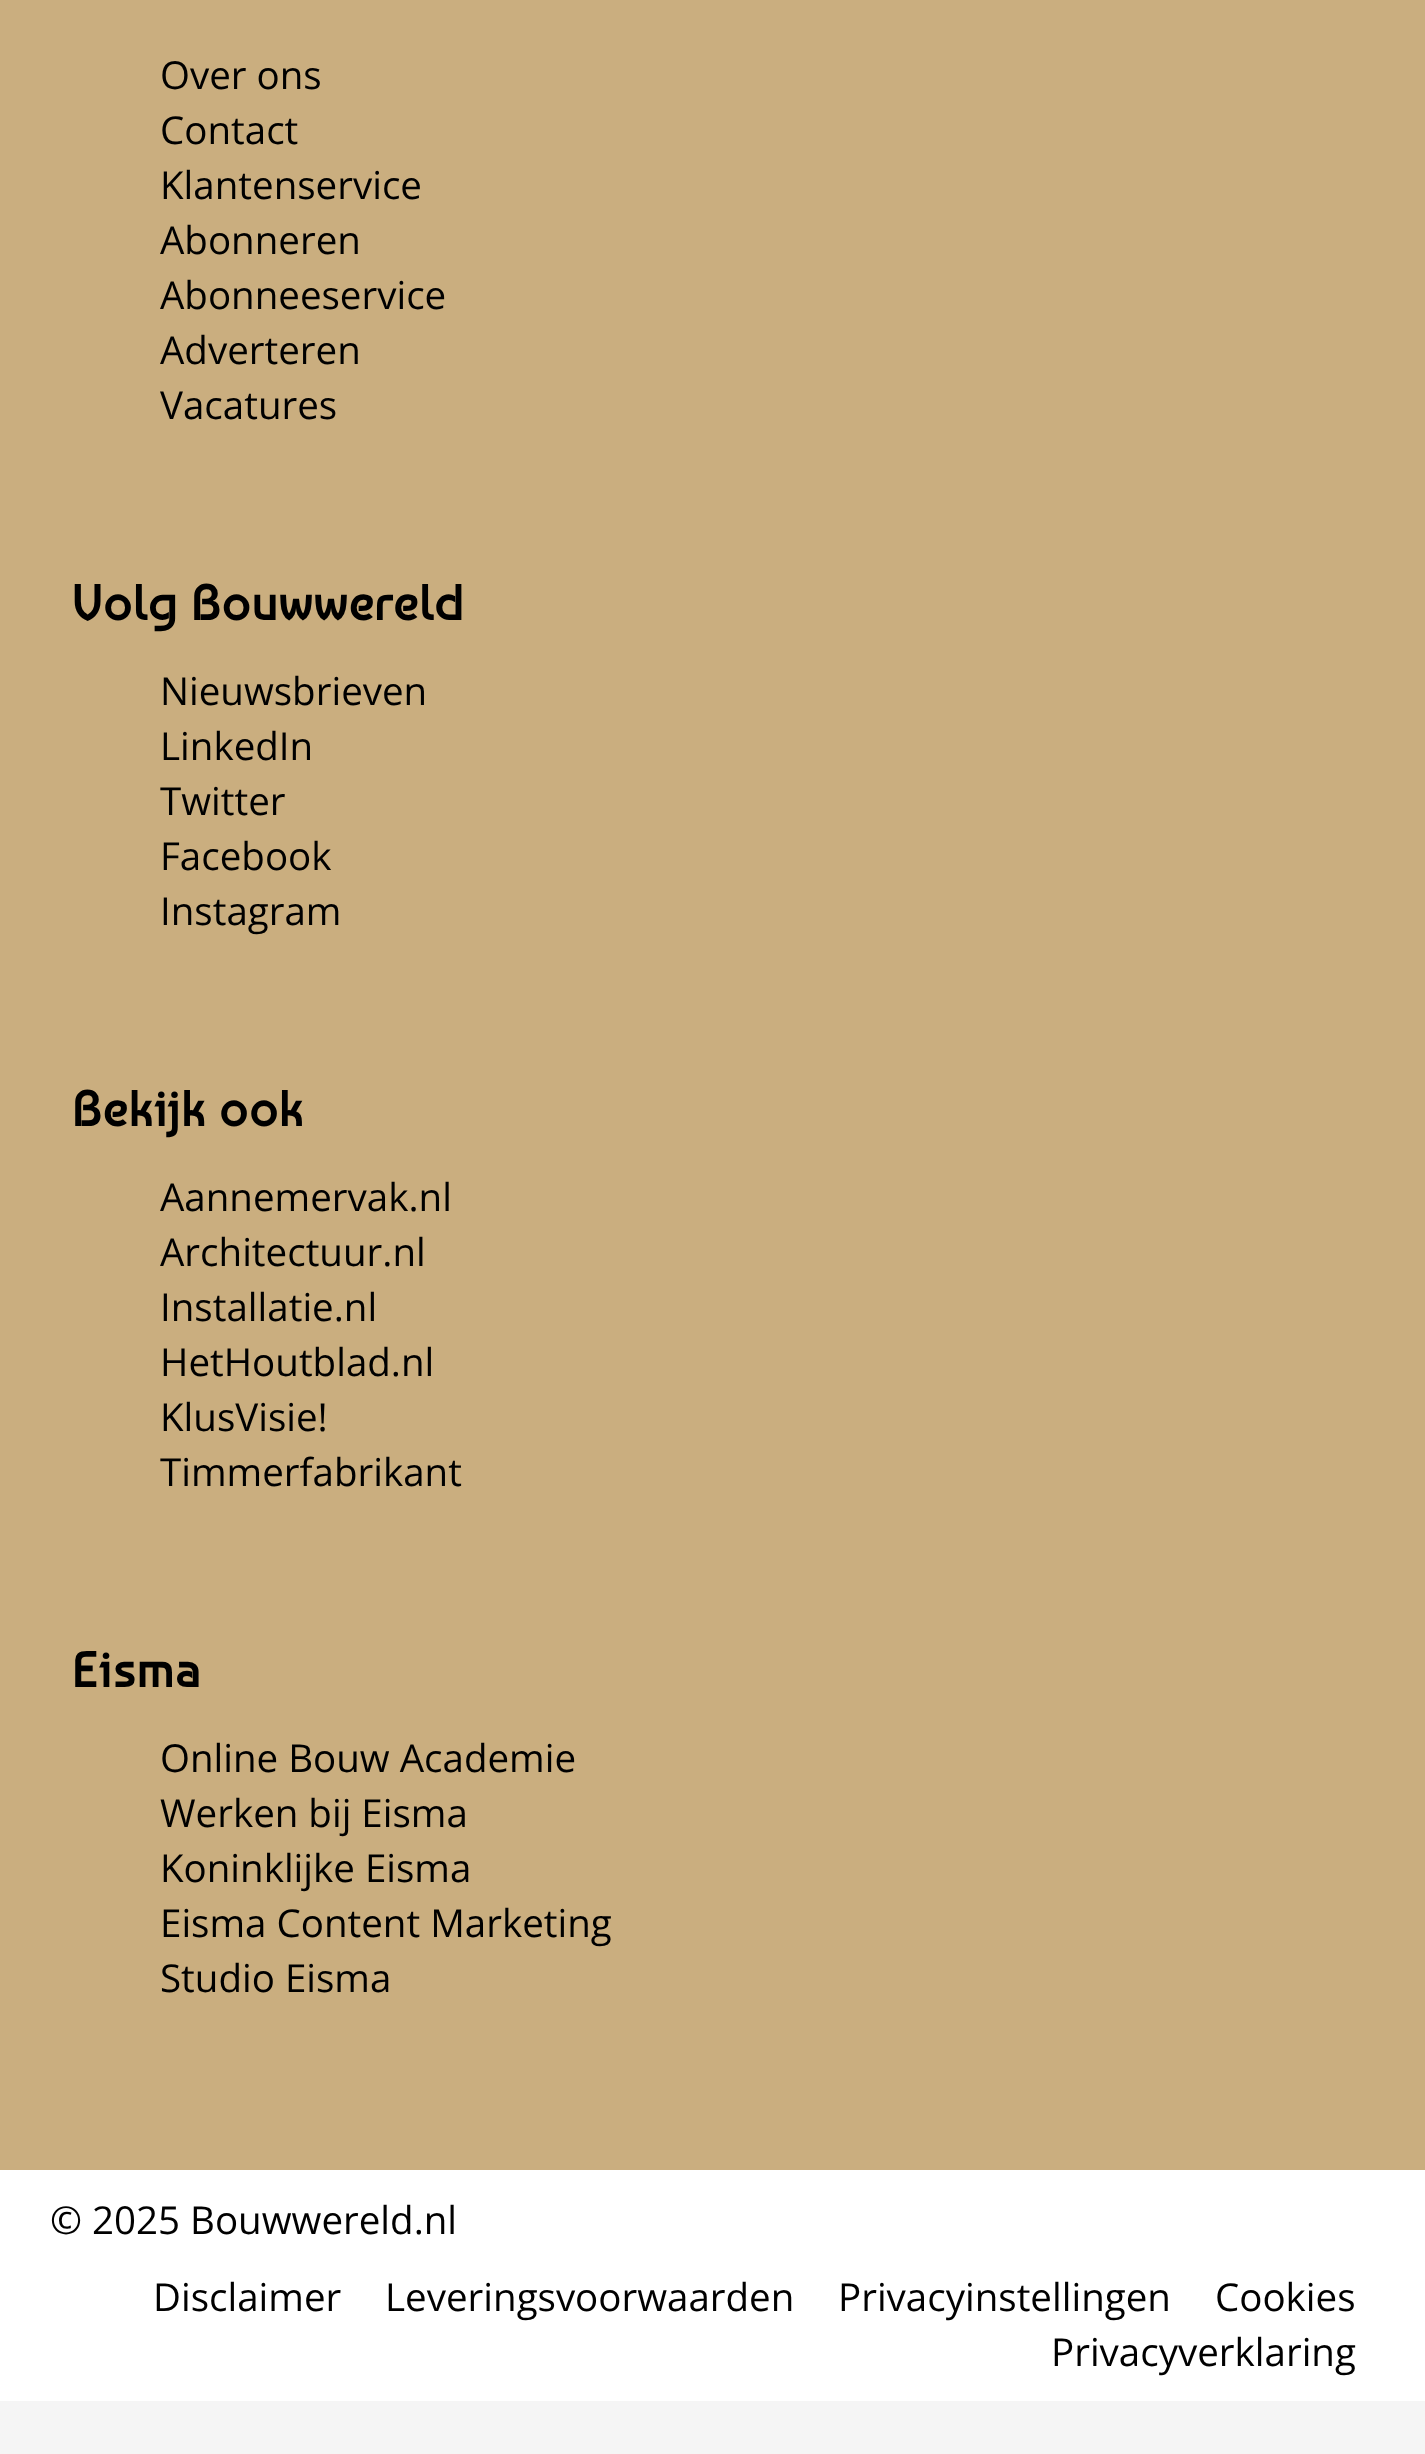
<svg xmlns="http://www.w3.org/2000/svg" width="1425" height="2454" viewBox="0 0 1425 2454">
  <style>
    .t1 { font: 38.5px Open Sans; fill: #000; }
    .t2 { font: bold 49.5px Baumans; letter-spacing: 1.25px; fill: #000; }
  </style>
  <rect width="100%" height="100%" fill="#f5f5f5"/>
  <rect x="0" y="0" width="1425" height="2170" fill="#caae7f"/>
  <text x="160" y="89" class="t1">Over ons</text>
  <text x="160" y="144" class="t1">Contact</text>
  <text x="160" y="199" class="t1">Klantenservice</text>
  <text x="160" y="254" class="t1">Abonneren</text>
  <text x="160" y="309" class="t1">Abonneeservice</text>
  <text x="160" y="364" class="t1">Adverteren</text>
  <text x="160" y="419" class="t1">Vacatures</text>
  <text x="72" y="620" class="t2">Volg Bouwwereld</text>
  <text x="160" y="705" class="t1">Nieuwsbrieven</text>
  <text x="160" y="760" class="t1">LinkedIn</text>
  <text x="160" y="815" class="t1">Twitter</text>
  <text x="160" y="870" class="t1">Facebook</text>
  <text x="160" y="925" class="t1">Instagram</text>
  <text x="72" y="1126" class="t2">Bekijk ook</text>
  <text x="160" y="1211" class="t1">Aannemervak.nl</text>
  <text x="160" y="1266" class="t1">Architectuur.nl</text>
  <text x="160" y="1321" class="t1">Installatie.nl</text>
  <text x="160" y="1376" class="t1">HetHoutblad.nl</text>
  <text x="160" y="1431" class="t1">KlusVisie!</text>
  <text x="160" y="1486" class="t1">Timmerfabrikant</text>
  <text x="72" y="1687" class="t2">Eisma</text>
  <text x="160" y="1772" class="t1">Online Bouw Academie</text>
  <text x="160" y="1827" class="t1">Werken bij Eisma</text>
  <text x="160" y="1882" class="t1">Koninklijke Eisma</text>
  <text x="160" y="1937" class="t1">Eisma Content Marketing</text>
  <text x="160" y="1992" class="t1">Studio Eisma</text>
  <rect x="0" y="2170" width="1425" height="231" fill="#fff"/>
  <text x="50" y="2234" class="t1">© 2025 Bouwwereld.nl</text>
  <text x="153" y="2311" class="t1">Disclaimer</text>
  <text x="385" y="2311" class="t1">Leveringsvoorwaarden</text>
  <text x="838" y="2311" class="t1">Privacyinstellingen</text>
  <text x="1215" y="2311" class="t1">Cookies</text>
  <text x="1051" y="2366" class="t1">Privacyverklaring</text>
</svg>
